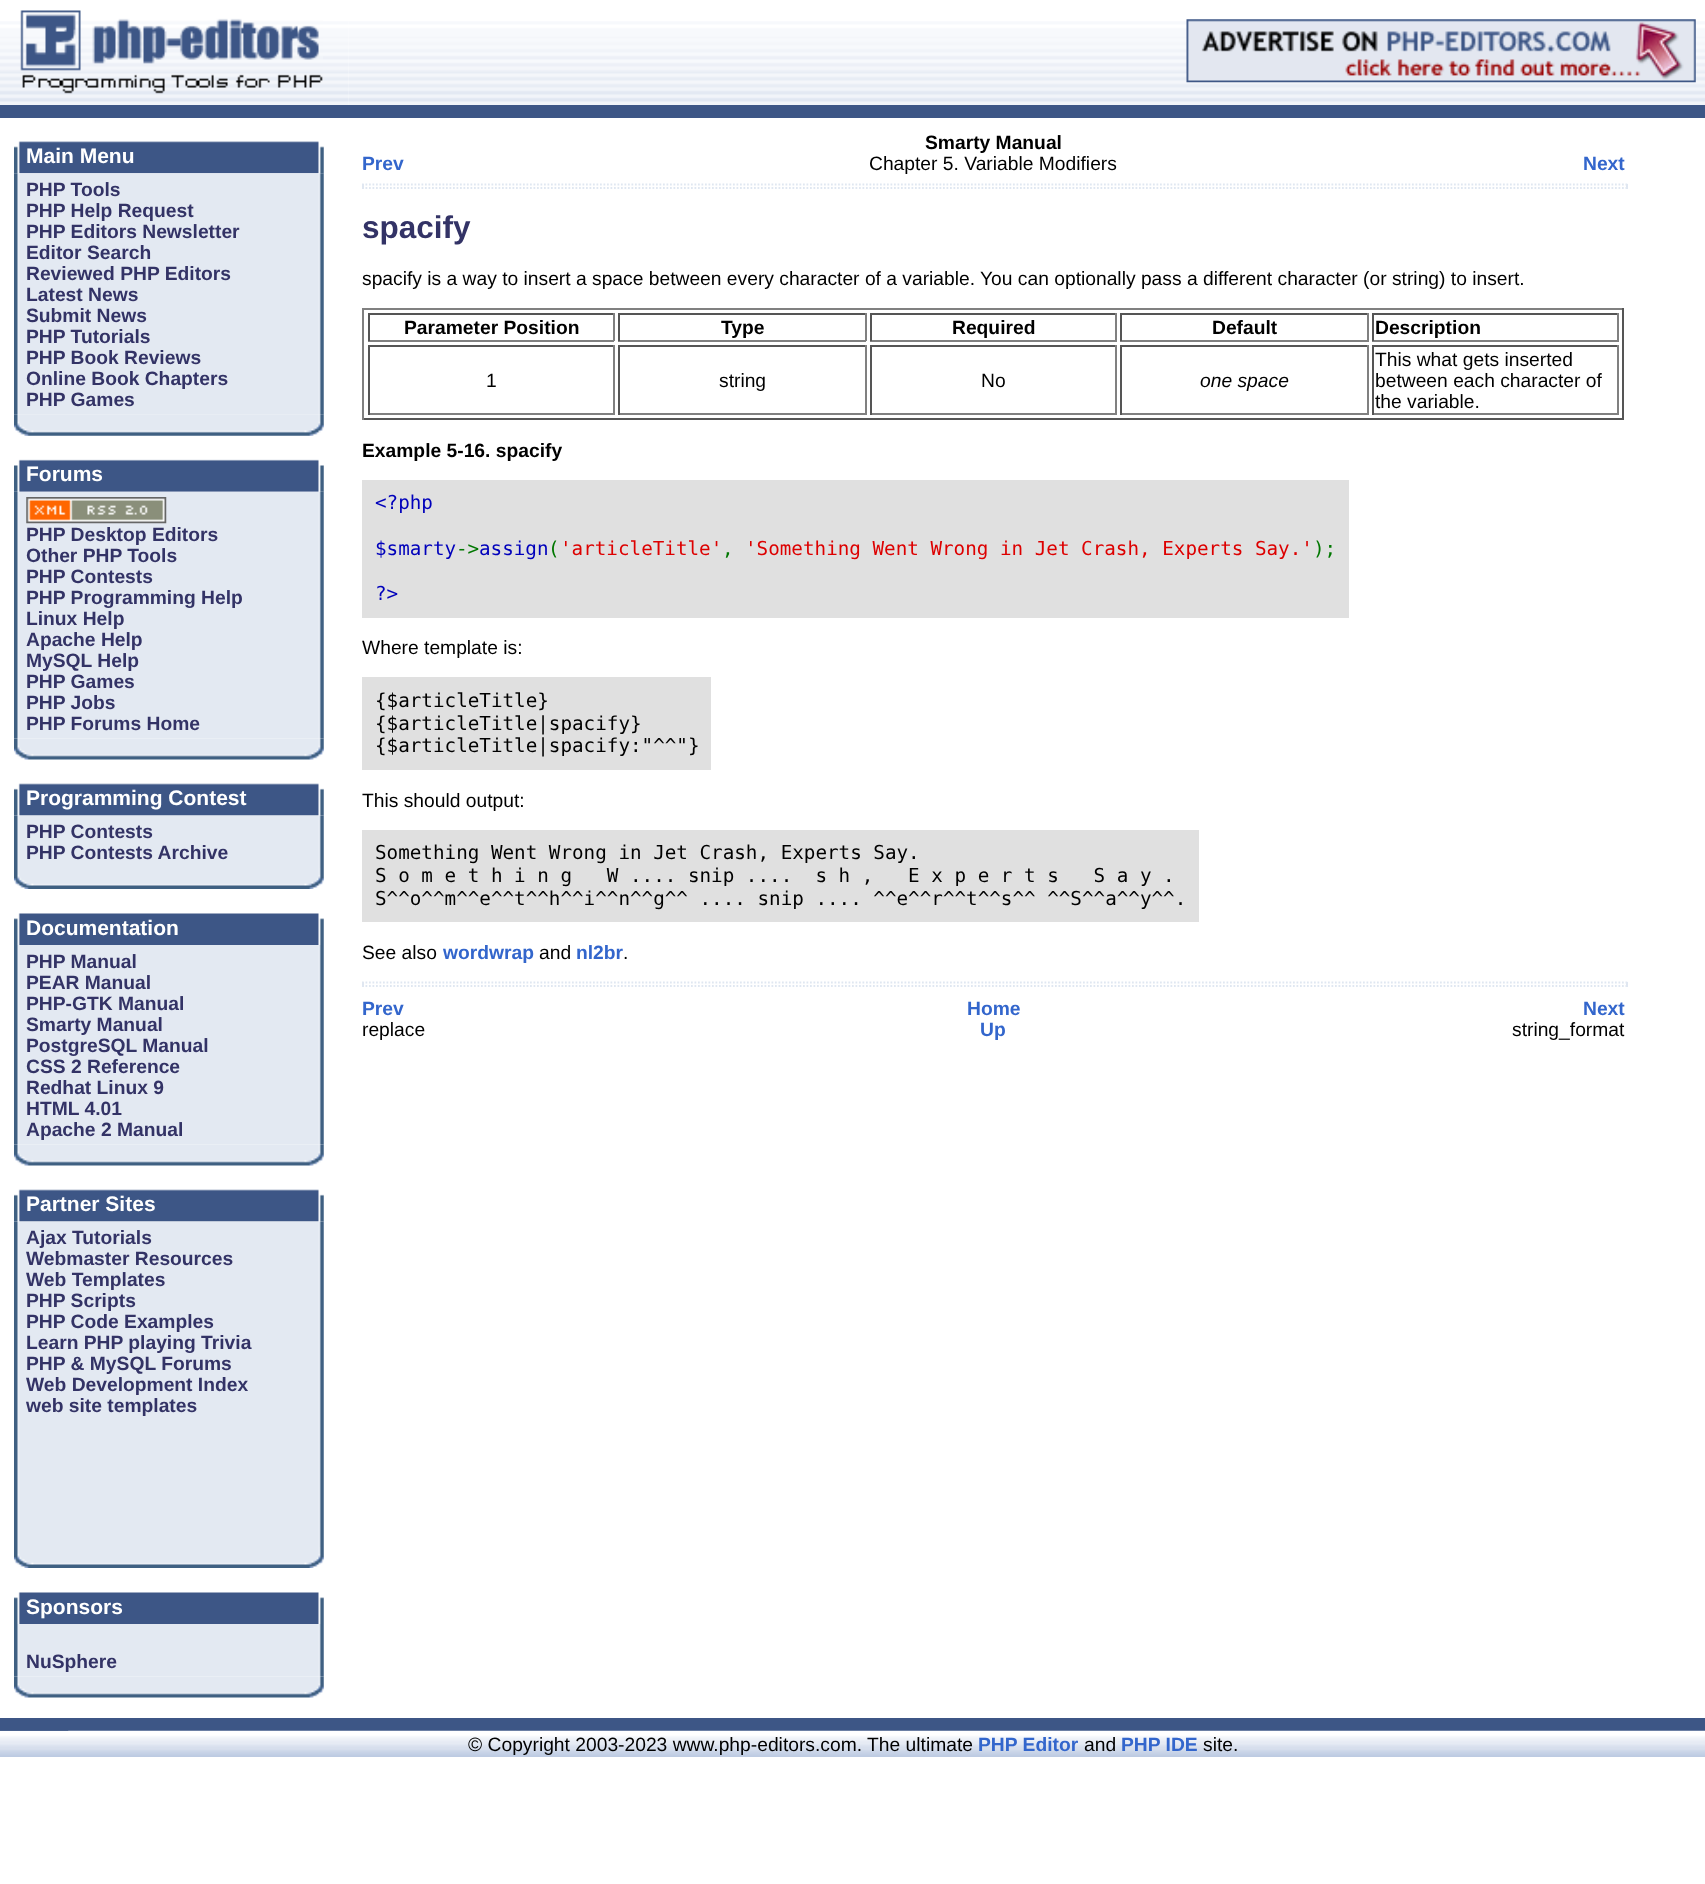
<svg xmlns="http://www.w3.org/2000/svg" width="1705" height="1884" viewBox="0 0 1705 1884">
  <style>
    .t1 { font: bold 21px Liberation Sans; fill: #fff; }
    .t2 { font: bold 19.25px Liberation Sans; fill: #336; }
    .t3 { font: bold 19.25px Liberation Sans; fill: #000; }
    .t4 { font: bold 19.25px Liberation Sans; fill: #36c; }
    .t5 { font: 19.25px Liberation Sans; fill: #000; }
    .t6 { font: bold 31.5px Liberation Sans; fill: #336; }
    .t7 { font: italic 19.25px Liberation Sans; fill: #000; }
    .t8 { font: 19.25px DejaVu Sans Mono; fill: #00b; }
    .t9 { font: 19.25px DejaVu Sans Mono; fill: #070; }
    .t10 { font: 19.25px DejaVu Sans Mono; fill: #d00; }
    .t11 { font: 19.25px DejaVu Sans Mono; fill: #000; }
  </style>
  <rect width="100%" height="100%" fill="#fff"/>
  <image x="0" y="21" width="349" height="84" href="images/1.png"/>
  <image x="20" y="10" width="303" height="84" href="images/2.png"/>
  <image x="348" y="21" width="1357" height="84" href="images/3.png"/>
  <image x="1186" y="19" width="510" height="64" href="images/4.png"/>
  <rect x="0" y="105" width="1705" height="13" fill="#3d5686"/>
  <image x="14" y="141" width="310" height="33" href="images/5.png"/>
  <text x="26" y="163" class="t1">Main Menu</text>
  <image x="14" y="173" width="310" height="242" href="images/6.png"/>
  <text x="26" y="196" class="t2">PHP Tools</text>
  <text x="26" y="217" class="t2">PHP Help Request</text>
  <text x="26" y="238" class="t2">PHP Editors Newsletter</text>
  <text x="26" y="259" class="t2">Editor Search</text>
  <text x="26" y="280" class="t2">Reviewed PHP Editors</text>
  <text x="26" y="301" class="t2">Latest News</text>
  <text x="26" y="322" class="t2">Submit News</text>
  <text x="26" y="343" class="t2">PHP Tutorials</text>
  <text x="26" y="364" class="t2">PHP Book Reviews</text>
  <text x="26" y="385" class="t2">Online Book Chapters</text>
  <text x="26" y="406" class="t2">PHP Games</text>
  <image x="14" y="414" width="310" height="22" href="images/7.png"/>
  <image x="14" y="459" width="310" height="33" href="images/8.png"/>
  <text x="26" y="481" class="t1">Forums</text>
  <image x="14" y="491" width="310" height="248" href="images/9.png"/>
  <image x="26" y="497" width="141" height="27" href="images/10.png"/>
  <text x="26" y="541" class="t2">PHP Desktop Editors</text>
  <text x="26" y="562" class="t2">Other PHP Tools</text>
  <text x="26" y="583" class="t2">PHP Contests</text>
  <text x="26" y="604" class="t2">PHP Programming Help</text>
  <text x="26" y="625" class="t2">Linux Help</text>
  <text x="26" y="646" class="t2">Apache Help</text>
  <text x="26" y="667" class="t2">MySQL Help</text>
  <text x="26" y="688" class="t2">PHP Games</text>
  <text x="26" y="709" class="t2">PHP Jobs</text>
  <text x="26" y="730" class="t2">PHP Forums Home</text>
  <image x="14" y="738" width="310" height="22" href="images/11.png"/>
  <image x="14" y="783" width="310" height="33" href="images/12.png"/>
  <text x="26" y="805" class="t1">Programming Contest</text>
  <image x="14" y="815" width="310" height="53" href="images/13.png"/>
  <text x="26" y="838" class="t2">PHP Contests</text>
  <text x="26" y="859" class="t2">PHP Contests Archive</text>
  <image x="14" y="868" width="310" height="21" href="images/14.png"/>
  <image x="14" y="913" width="310" height="32" href="images/15.png"/>
  <text x="26" y="935" class="t1">Documentation</text>
  <image x="14" y="945" width="310" height="200" href="images/16.png"/>
  <text x="26" y="968" class="t2">PHP Manual</text>
  <text x="26" y="989" class="t2">PEAR Manual</text>
  <text x="26" y="1010" class="t2">PHP-GTK Manual</text>
  <text x="26" y="1031" class="t2">Smarty Manual</text>
  <text x="26" y="1052" class="t2">PostgreSQL Manual</text>
  <text x="26" y="1073" class="t2">CSS 2 Reference</text>
  <text x="26" y="1094" class="t2">Redhat Linux 9</text>
  <text x="26" y="1115" class="t2">HTML 4.01</text>
  <text x="26" y="1136" class="t2">Apache 2 Manual</text>
  <image x="14" y="1144" width="310" height="22" href="images/11.png"/>
  <image x="14" y="1189" width="310" height="33" href="images/12.png"/>
  <text x="26" y="1211" class="t1">Partner Sites</text>
  <image x="14" y="1221" width="310" height="326" href="images/17.png"/>
  <text x="26" y="1244" class="t2">Ajax Tutorials</text>
  <text x="26" y="1265" class="t2">Webmaster Resources</text>
  <text x="26" y="1286" class="t2">Web Templates</text>
  <text x="26" y="1307" class="t2">PHP Scripts</text>
  <text x="26" y="1328" class="t2">PHP Code Examples</text>
  <text x="26" y="1349" class="t2">Learn PHP playing Trivia</text>
  <text x="26" y="1370" class="t2">PHP &amp; MySQL Forums</text>
  <text x="26" y="1391" class="t2">Web Development Index</text>
  <text x="26" y="1412" class="t2">web site templates</text>
  <image x="14" y="1547" width="310" height="21" href="images/14.png"/>
  <image x="14" y="1592" width="310" height="32" href="images/15.png"/>
  <text x="26" y="1614" class="t1">Sponsors</text>
  <image x="14" y="1624" width="310" height="53" href="images/18.png"/>
  <text x="26" y="1668" class="t2">NuSphere</text>
  <image x="14" y="1676" width="310" height="22" href="images/11.png"/>
  <text x="925" y="149" class="t3">Smarty Manual</text>
  <text x="362" y="170" class="t4">Prev</text>
  <text x="869" y="170" class="t5">Chapter 5. Variable Modifiers</text>
  <text x="1583" y="170" class="t4">Next</text>
  <path d="M362 184.5H1627.5" fill="none" stroke="#e0e7f1" stroke-width="1.8" stroke-dasharray="1.75 1.75"/>
  <rect x="1626" y="184" width="2" height="5" fill="#e0e7f1"/>
  <path d="M362 188H1627.5" fill="none" stroke="#e0e7f1" stroke-width="1.8" stroke-dasharray="1.75 1.75"/>
  <rect x="362" y="184" width="2" height="5" fill="#e0e7f1"/>
  <text x="362" y="238" class="t6">spacify</text>
  <text x="362" y="285" class="t5">spacify is a way to insert a space between every character of a variable.</text>
  <text x="980" y="285" class="t5">You can optionally pass a different character (or string) to insert.</text>
  <rect x="362" y="308" width="1262" height="2" fill="#808080"/>
  <rect x="1622" y="308" width="2" height="112" fill="#555"/>
  <rect x="362" y="418" width="1262" height="2" fill="#555"/>
  <rect x="362" y="308" width="2" height="112" fill="#808080"/>
  <rect x="368" y="313" width="246" height="2" fill="#555"/>
  <rect x="613" y="313" width="2" height="28" fill="#808080"/>
  <rect x="368" y="340" width="246" height="2" fill="#808080"/>
  <rect x="368" y="313" width="2" height="28" fill="#555"/>
  <text x="404" y="334" class="t3">Parameter Position</text>
  <rect x="618" y="313" width="248" height="2" fill="#555"/>
  <rect x="865" y="313" width="2" height="28" fill="#808080"/>
  <rect x="618" y="340" width="248" height="2" fill="#808080"/>
  <rect x="618" y="313" width="2" height="28" fill="#555"/>
  <text x="721" y="334" class="t3">Type</text>
  <rect x="870" y="313" width="247" height="2" fill="#555"/>
  <rect x="1115" y="313" width="2" height="28" fill="#808080"/>
  <rect x="870" y="340" width="247" height="2" fill="#808080"/>
  <rect x="870" y="313" width="2" height="28" fill="#555"/>
  <text x="952" y="334" class="t3">Required</text>
  <rect x="1120" y="313" width="249" height="2" fill="#555"/>
  <rect x="1367" y="313" width="2" height="28" fill="#808080"/>
  <rect x="1120" y="340" width="249" height="2" fill="#808080"/>
  <rect x="1120" y="313" width="2" height="28" fill="#555"/>
  <text x="1212" y="334" class="t3">Default</text>
  <rect x="1372" y="313" width="247" height="2" fill="#555"/>
  <rect x="1617" y="313" width="2" height="28" fill="#808080"/>
  <rect x="1372" y="340" width="247" height="2" fill="#808080"/>
  <rect x="1372" y="313" width="2" height="28" fill="#555"/>
  <text x="1375" y="334" class="t3">Description</text>
  <rect x="368" y="345" width="246" height="2" fill="#555"/>
  <rect x="613" y="345" width="2" height="70" fill="#808080"/>
  <rect x="368" y="413" width="246" height="2" fill="#808080"/>
  <rect x="368" y="345" width="2" height="70" fill="#555"/>
  <text x="486" y="387" class="t5">1</text>
  <rect x="618" y="345" width="248" height="2" fill="#555"/>
  <rect x="865" y="345" width="2" height="70" fill="#808080"/>
  <rect x="618" y="413" width="248" height="2" fill="#808080"/>
  <rect x="618" y="345" width="2" height="70" fill="#555"/>
  <text x="719" y="387" class="t5">string</text>
  <rect x="870" y="345" width="247" height="2" fill="#555"/>
  <rect x="1115" y="345" width="2" height="70" fill="#808080"/>
  <rect x="870" y="413" width="247" height="2" fill="#808080"/>
  <rect x="870" y="345" width="2" height="70" fill="#555"/>
  <text x="981" y="387" class="t5">No</text>
  <rect x="1120" y="345" width="249" height="2" fill="#555"/>
  <rect x="1367" y="345" width="2" height="70" fill="#808080"/>
  <rect x="1120" y="413" width="249" height="2" fill="#808080"/>
  <rect x="1120" y="345" width="2" height="70" fill="#555"/>
  <text x="1200" y="387" class="t7">one space</text>
  <rect x="1372" y="345" width="247" height="2" fill="#555"/>
  <rect x="1617" y="345" width="2" height="70" fill="#808080"/>
  <rect x="1372" y="413" width="247" height="2" fill="#808080"/>
  <rect x="1372" y="345" width="2" height="70" fill="#555"/>
  <text x="1375" y="366" class="t5">This what gets inserted</text>
  <text x="1375" y="387" class="t5">between each character of</text>
  <text x="1375" y="408" class="t5">the variable.</text>
  <text x="362" y="457" class="t3">Example 5-16. spacify</text>
  <rect x="362" y="480" width="987" height="138" fill="#e0e0e0"/>
  <text x="375" y="509" class="t8">&lt;?php</text>
  <text x="375" y="555" class="t8">$smarty</text>
  <text x="456" y="555" class="t9">-&gt;</text>
  <text x="479" y="555" class="t8">assign</text>
  <text x="548" y="555" class="t9">(</text>
  <text x="560" y="555" class="t10">'articleTitle'</text>
  <text x="745" y="555" class="t10">'Something Went Wrong in Jet Crash, Experts Say.'</text>
  <text x="1313" y="555" class="t9">);</text>
  <text x="722" y="555" class="t9">,</text>
  <text x="375" y="600" class="t8">?&gt;</text>
  <text x="362" y="654" class="t5">Where template is:</text>
  <rect x="362" y="677" width="349" height="93" fill="#e0e0e0"/>
  <text x="375" y="707" class="t11">{$articleTitle}</text>
  <text x="375" y="730" class="t11">{$articleTitle|spacify}</text>
  <text x="375" y="752" class="t11">{$articleTitle|spacify:"^^"}</text>
  <text x="362" y="807" class="t5">This should output:</text>
  <rect x="362" y="830" width="837" height="92" fill="#e0e0e0"/>
  <text x="375" y="859" class="t11">Something Went Wrong in Jet Crash, Experts Say.</text>
  <text x="375" y="882" class="t11" xml:space="preserve">S o m e t h i n g   W .... snip ....  s h ,   E x p e r t s   S a y .</text>
  <text x="375" y="905" class="t11">S^^o^^m^^e^^t^^h^^i^^n^^g^^ .... snip .... ^^e^^r^^t^^s^^ ^^S^^a^^y^^.</text>
  <text x="362" y="959" class="t5">See also</text>
  <text x="443" y="959" class="t4">wordwrap</text>
  <text x="539" y="959" class="t5">and</text>
  <text x="576" y="959" class="t4">nl2br</text>
  <text x="623" y="959" class="t5">.</text>
  <path d="M362 982.5H1627.5" fill="none" stroke="#e0e7f1" stroke-width="1.8" stroke-dasharray="1.75 1.75"/>
  <rect x="1626" y="982" width="2" height="5" fill="#e0e7f1"/>
  <path d="M362 986H1627.5" fill="none" stroke="#e0e7f1" stroke-width="1.8" stroke-dasharray="1.75 1.75"/>
  <rect x="362" y="982" width="2" height="5" fill="#e0e7f1"/>
  <text x="362" y="1015" class="t4">Prev</text>
  <text x="967" y="1015" class="t4">Home</text>
  <text x="1583" y="1015" class="t4">Next</text>
  <text x="362" y="1036" class="t5">replace</text>
  <text x="980" y="1036" class="t4">Up</text>
  <text x="1512" y="1036" class="t5">string_format</text>
  <rect x="0" y="1718" width="1705" height="13" fill="#3d5686"/>
  <image x="0" y="1730" width="1705" height="27" href="images/20.png"/>
  <image x="0" y="1730" width="69" height="1" href="images/19.png"/>
  <text x="468" y="1751" class="t5">© Copyright 2003-2023 www.php-editors.com. The ultimate</text>
  <text x="978" y="1751" class="t4">PHP Editor</text>
  <text x="1084" y="1751" class="t5">and</text>
  <text x="1121" y="1751" class="t4">PHP IDE</text>
  <text x="1203" y="1751" class="t5">site.</text>
</svg>
